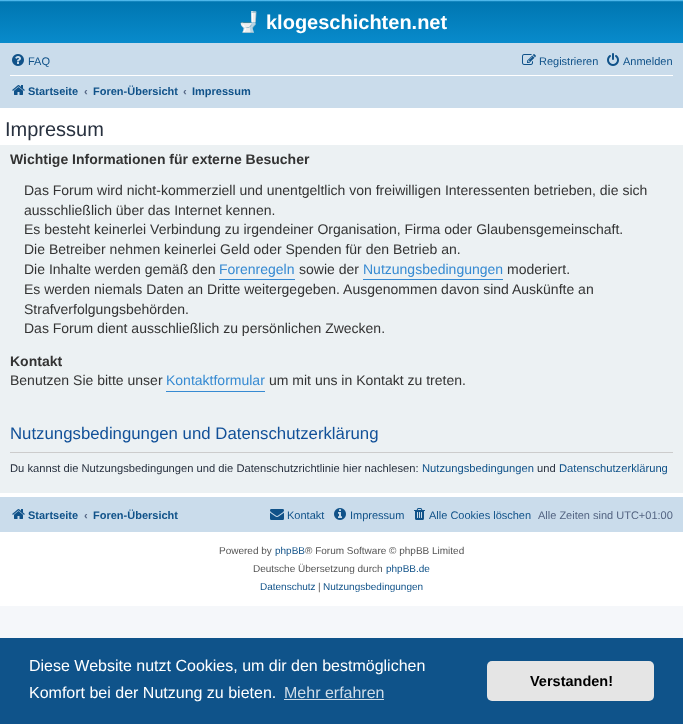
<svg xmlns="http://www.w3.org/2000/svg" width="683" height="724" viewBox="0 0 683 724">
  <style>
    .t1 { font: bold 20px Noto Color Emoji; fill: #fff; }
    .t2 { font: bold 20px Liberation Sans; fill: #fff; }
    .t3 { font: 11px Liberation Sans; fill: #105289; }
    .t4 { font: bold 11px Liberation Sans; fill: #105289; }
    .t5 { font: bold 11px Liberation Sans; fill: #536482; }
    .t6 { font: 20px Liberation Sans; fill: #28313f; }
    .t7 { font: bold 14px Liberation Sans; fill: #333; }
    .t8 { font: 14px Liberation Sans; fill: #333; }
    .t9 { font: 14px Liberation Sans; fill: #368ad2; }
    .t10 { font: 16.8px Liberation Sans; fill: #115098; }
    .t11 { font: 11.2px Liberation Sans; fill: #28313f; }
    .t12 { font: 11.2px Liberation Sans; fill: #105289; }
    .t13 { font: 11px Liberation Sans; fill: #536482; }
    .t14 { font: 10px Liberation Sans; fill: #555; }
    .t15 { font: 10px Liberation Sans; fill: #105289; }
    .t16 { font: 16px Liberation Sans; fill: #fff; }
    .t17 { font: 16px Liberation Sans; fill: #cfdde8; }
    .t18 { font: bold 14.5px Liberation Sans; fill: #000; }
  </style>
  <defs>
    <linearGradient id="g1" gradientUnits="userSpaceOnUse" x1="342" y1="0" x2="342" y2="92"><stop offset="0" stop-color="#6aceff"/><stop offset="0.02" stop-color="#0076b1"/><stop offset="1" stop-color="#12a3eb"/></linearGradient>
  </defs>
  <rect width="100%" height="100%" fill="#f5f7fa"/>
  <rect x="0" y="108" width="683" height="498" fill="#fff"/>
  <rect x="0" y="0" width="683" height="43" fill="url(#g1)"/>
  <text x="236" y="29" class="t1">🚽</text>
  <text x="266" y="29" class="t2">klogeschichten.net</text>
  <rect x="0" y="43" width="683" height="65" fill="#cadceb"/>
  <image x="12" y="54" width="12" height="12" href="images/1.png"/>
  <text x="28" y="65" class="t3">FAQ</text>
  <image x="522" y="54" width="14" height="11" href="images/2.png"/>
  <text x="539" y="65" class="t3">Registrieren</text>
  <image x="607" y="53" width="12" height="13" href="images/3.png"/>
  <text x="623" y="65" class="t3">Anmelden</text>
  <rect x="10" y="75" width="663" height="1" fill="#fff"/>
  <image x="12" y="85" width="13" height="10" href="images/4.png"/>
  <text x="28" y="95" class="t4">Startseite</text>
  <text x="84" y="95" class="t5">‹</text>
  <text x="93" y="95" class="t4">Foren-Übersicht</text>
  <text x="183" y="95" class="t5">‹</text>
  <text x="192" y="95" class="t4">Impressum</text>
  <text x="5" y="136" class="t6">Impressum</text>
  <rect x="0" y="145" width="683" height="348" fill="#ecf1f3"/>
  <text x="10" y="164" class="t7">Wichtige Informationen für externe Besucher</text>
  <text x="24" y="195" class="t8">Das Forum wird nicht-kommerziell und unentgeltlich von freiwilligen Interessenten betrieben, die sich</text>
  <text x="24" y="215" class="t8">ausschließlich über das Internet kennen.</text>
  <text x="24" y="234" class="t8">Es besteht keinerlei Verbindung zu irgendeiner Organisation, Firma oder Glaubensgemeinschaft.</text>
  <text x="24" y="254" class="t8">Die Betreiber nehmen keinerlei Geld oder Spenden für den Betrieb an.</text>
  <text x="24" y="274" class="t8">Die Inhalte werden gemäß den</text>
  <rect x="219" y="279" width="76" height="1" fill="#368ad2"/>
  <text x="219" y="274" class="t9">Forenregeln</text>
  <text x="299" y="274" class="t8">sowie der</text>
  <rect x="363" y="279" width="140" height="1" fill="#368ad2"/>
  <text x="363" y="274" class="t9">Nutzungsbedingungen</text>
  <text x="507" y="274" class="t8">moderiert.</text>
  <text x="24" y="294" class="t8">Es werden niemals Daten an Dritte weitergegeben. Ausgenommen davon sind Auskünfte an</text>
  <text x="24" y="314" class="t8">Strafverfolgungsbehörden.</text>
  <text x="24" y="333" class="t8">Das Forum dient ausschließlich zu persönlichen Zwecken.</text>
  <text x="10" y="366" class="t7">Kontakt</text>
  <text x="10" y="385" class="t8">Benutzen Sie bitte unser</text>
  <rect x="166" y="391" width="99" height="1" fill="#368ad2"/>
  <text x="166" y="385" class="t9">Kontaktformular</text>
  <text x="269" y="385" class="t8">um mit uns in Kontakt zu treten.</text>
  <rect x="10" y="452" width="663" height="1" fill="#ccc"/>
  <text x="10" y="439" class="t10">Nutzungsbedingungen und Datenschutzerklärung</text>
  <text x="10" y="472" class="t11">Du kannst die Nutzungsbedingungen und die Datenschutzrichtlinie hier nachlesen:</text>
  <text x="422" y="472" class="t12">Nutzungsbedingungen</text>
  <text x="537" y="472" class="t11">und</text>
  <text x="559" y="472" class="t12">Datenschutzerklärung</text>
  <rect x="0" y="497" width="683" height="35" fill="#cadceb"/>
  <image x="12" y="509" width="13" height="10" href="images/4.png"/>
  <text x="28" y="519" class="t4">Startseite</text>
  <text x="84" y="519" class="t5">‹</text>
  <text x="93" y="519" class="t4">Foren-Übersicht</text>
  <image x="270" y="509" width="14" height="11" href="images/5.png"/>
  <text x="287" y="519" class="t3">Kontakt</text>
  <image x="334" y="508" width="12" height="12" href="images/6.png"/>
  <text x="350" y="519" class="t3">Impressum</text>
  <image x="414" y="508" width="11" height="12" href="images/7.png"/>
  <text x="429" y="519" class="t3">Alle Cookies löschen</text>
  <text x="538" y="519" class="t13">Alle Zeiten sind UTC+01:00</text>
  <text x="219" y="554" class="t14">Powered by</text>
  <text x="275" y="554" class="t15">phpBB</text>
  <text x="305" y="554" class="t14">® Forum Software © phpBB Limited</text>
  <text x="253" y="572" class="t14">Deutsche Übersetzung durch</text>
  <text x="386" y="572" class="t15">phpBB.de</text>
  <text x="260" y="590" class="t15">Datenschutz</text>
  <text x="318" y="590" class="t14">|</text>
  <text x="323" y="590" class="t15">Nutzungsbedingungen</text>
  <rect x="0" y="638" width="683" height="86" fill="#0f538a"/>
  <text x="29" y="671" class="t16">Diese Website nutzt Cookies, um dir den bestmöglichen</text>
  <text x="29" y="698" class="t16">Komfort bei der Nutzung zu bieten.</text>
  <text x="284" y="698" class="t17">Mehr erfahren</text>
  <rect x="284" y="699" width="100" height="1" fill="#cfdde8"/>
  <rect x="487" y="661" width="167" height="40" rx="5" fill="#e5e5e5"/>
  <text x="530" y="686" class="t18">Verstanden!</text>
</svg>
